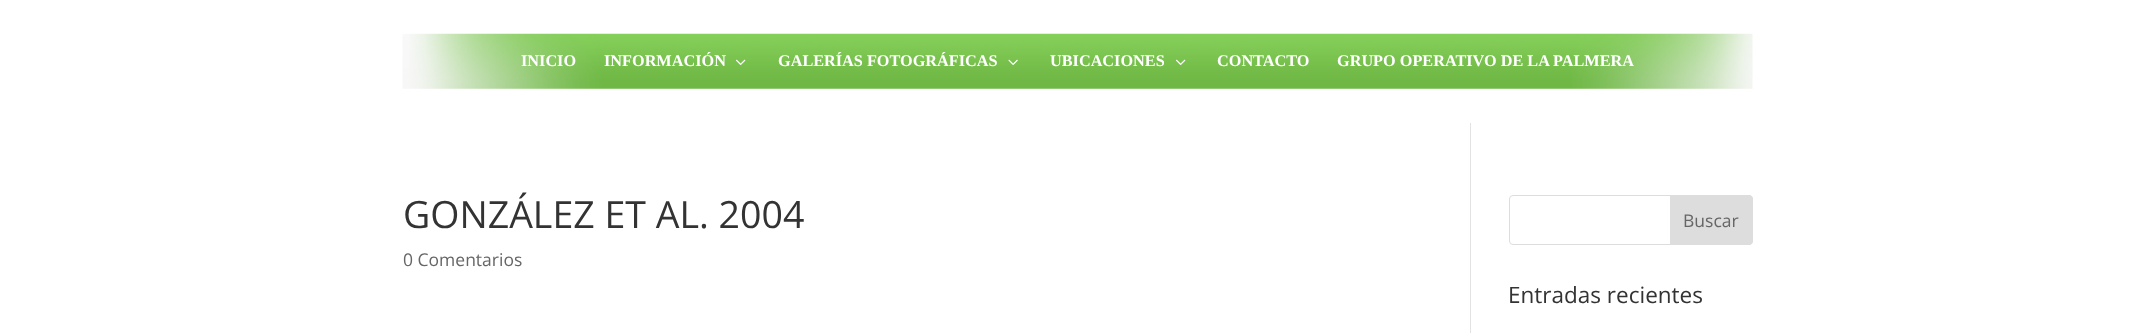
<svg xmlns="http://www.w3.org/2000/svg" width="2154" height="333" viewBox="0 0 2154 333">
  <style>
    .t1 { font: bold 16.25px Liberation Serif; fill: #fff; }
    .t2 { font: 37.5px Open Sans; fill: #333; }
    .t3 { font: 17.5px Open Sans; fill: #666; }
    .t4 { font: 22.5px Open Sans; fill: #333; }
  </style>
  <rect width="100%" height="100%" fill="#fff"/>
  <image x="402" y="33" width="1351" height="56" href="images/1.png"/>
  <text x="521" y="66" class="t1">INICIO</text>
  <text x="604" y="66" class="t1">INFORMACIÓN</text>
  <image x="736" y="59" width="10" height="6" href="images/2.png"/>
  <text x="778" y="66" class="t1">GALERÍAS FOTOGRÁFICAS</text>
  <image x="1008" y="59" width="10" height="6" href="images/3.png"/>
  <text x="1050" y="66" class="t1">UBICACIONES</text>
  <image x="1176" y="59" width="10" height="6" href="images/4.png"/>
  <text x="1217" y="66" class="t1">CONTACTO</text>
  <text x="1337" y="66" class="t1">GRUPO OPERATIVO DE LA PALMERA</text>
  <rect x="1470" y="123" width="1" height="210" fill="#e2e2e2"/>
  <text x="403" y="228" class="t2">GONZÁLEZ ET AL. 2004</text>
  <text x="403" y="266" class="t3">0 Comentarios</text>
  <rect x="1509.5" y="195.5" width="243" height="49" rx="3.5" fill="none" stroke="#ddd"/>
  <path d="M1670.5 195.5H1749C1751 195.5 1752.5 197 1752.5 199V241C1752.5 243 1751 244.5 1749 244.5H1670.5Z" fill="#ddd" stroke="#ddd"/>
  <text x="1683" y="227" class="t3">Buscar</text>
  <text x="1508" y="303" class="t4">Entradas recientes</text>
</svg>
